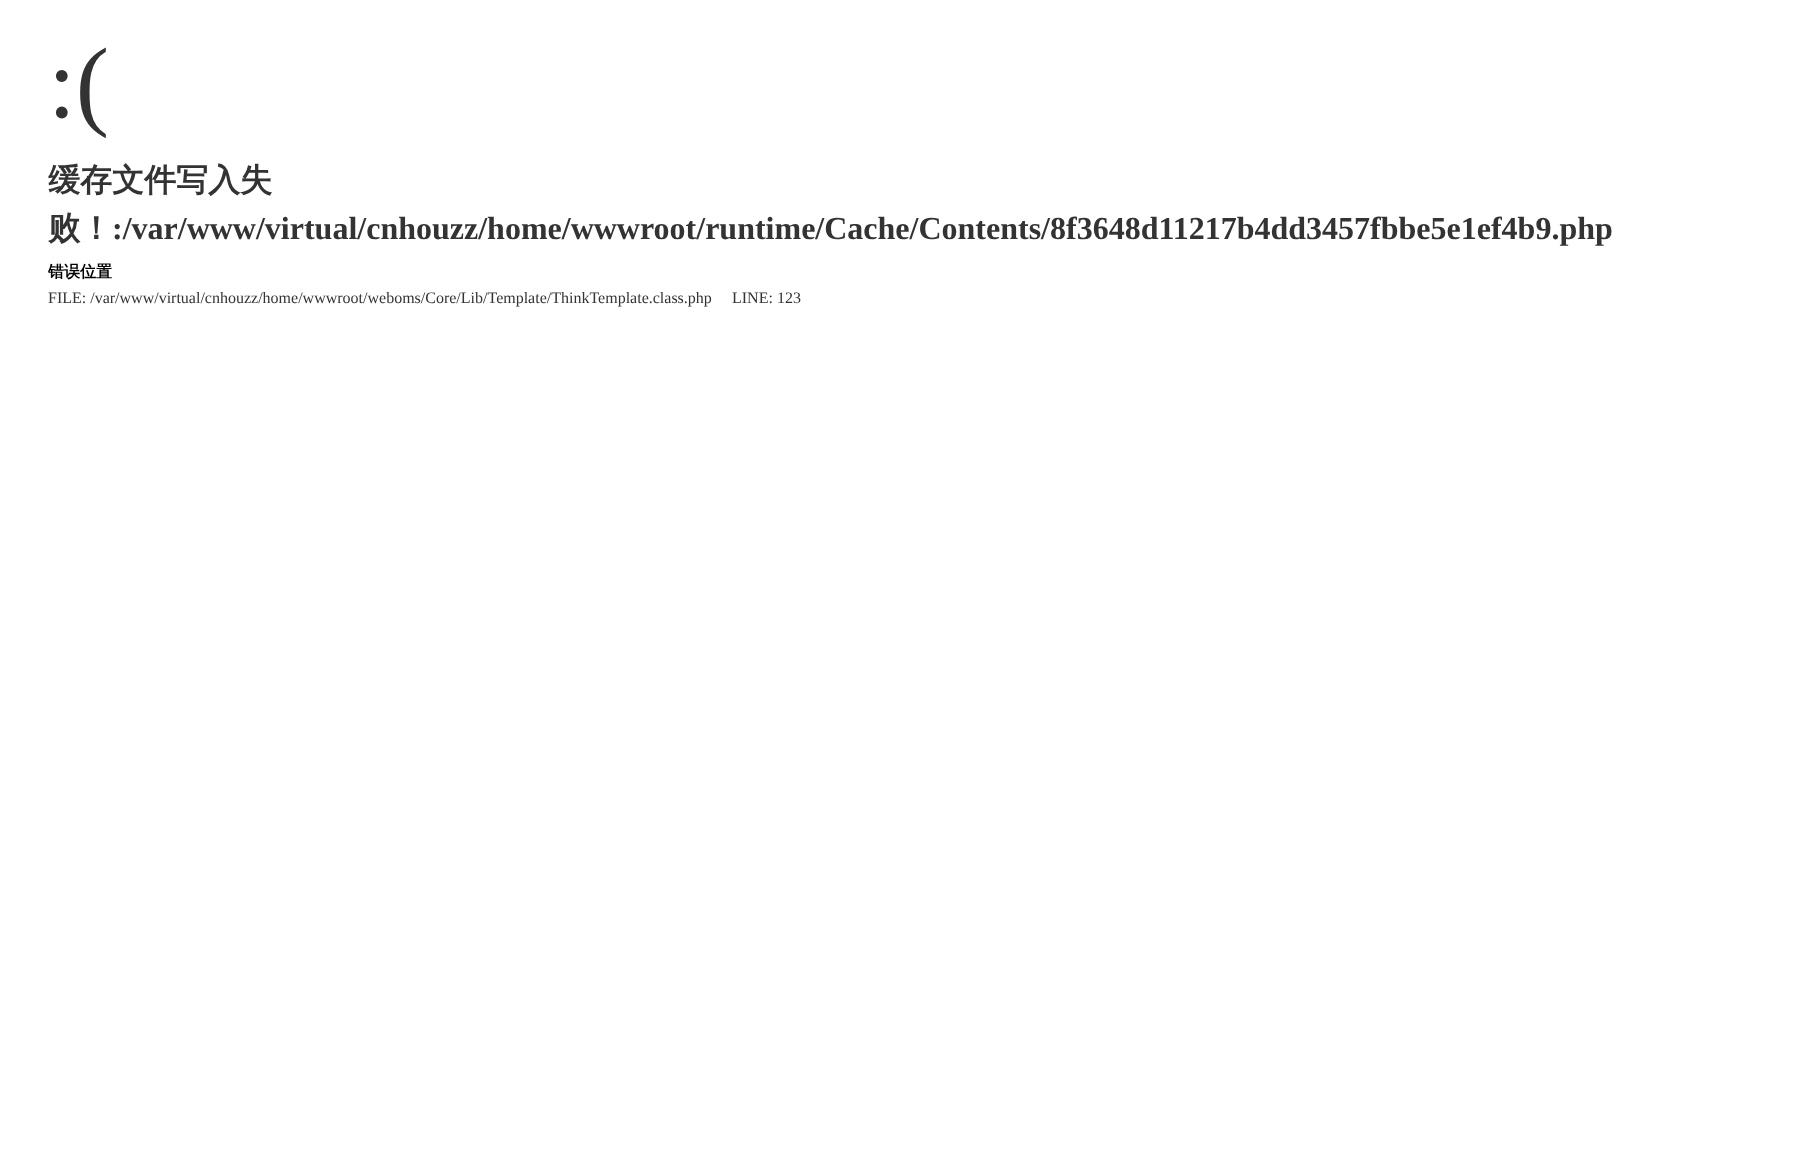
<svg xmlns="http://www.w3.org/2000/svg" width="1793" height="1167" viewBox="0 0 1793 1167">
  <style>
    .t1 { font: 100px Liberation Serif; fill: #333; }
    .t2 { font: bold 32px WenQuanYi Zen Hei; fill: #333; }
    .t3 { font: bold 32px Liberation Serif; fill: #333; }
    .t4 { font: bold 16px WenQuanYi Zen Hei; fill: #000; }
    .t5 { font: 16px Liberation Serif; fill: #333; }
  </style>
  <rect width="100%" height="100%" fill="#fff"/>
  <text x="48" y="117" class="t1">:(</text>
  <text x="48" y="191" class="t2">缓存文件写入失</text>
  <text x="48" y="239" class="t2">败！</text>
  <text x="112" y="239" class="t3">:/var/www/virtual/cnhouzz/home/wwwroot/runtime/Cache/Contents/8f3648d11217b4dd3457fbbe5e1ef4b9.php</text>
  <text x="48" y="277" class="t4">错误位置</text>
  <text x="48" y="303" class="t5">FILE: /var/www/virtual/cnhouzz/home/wwwroot/weboms/Core/Lib/Template/ThinkTemplate.class.php</text>
  <text x="732" y="303" class="t5">LINE: 123</text>
</svg>
